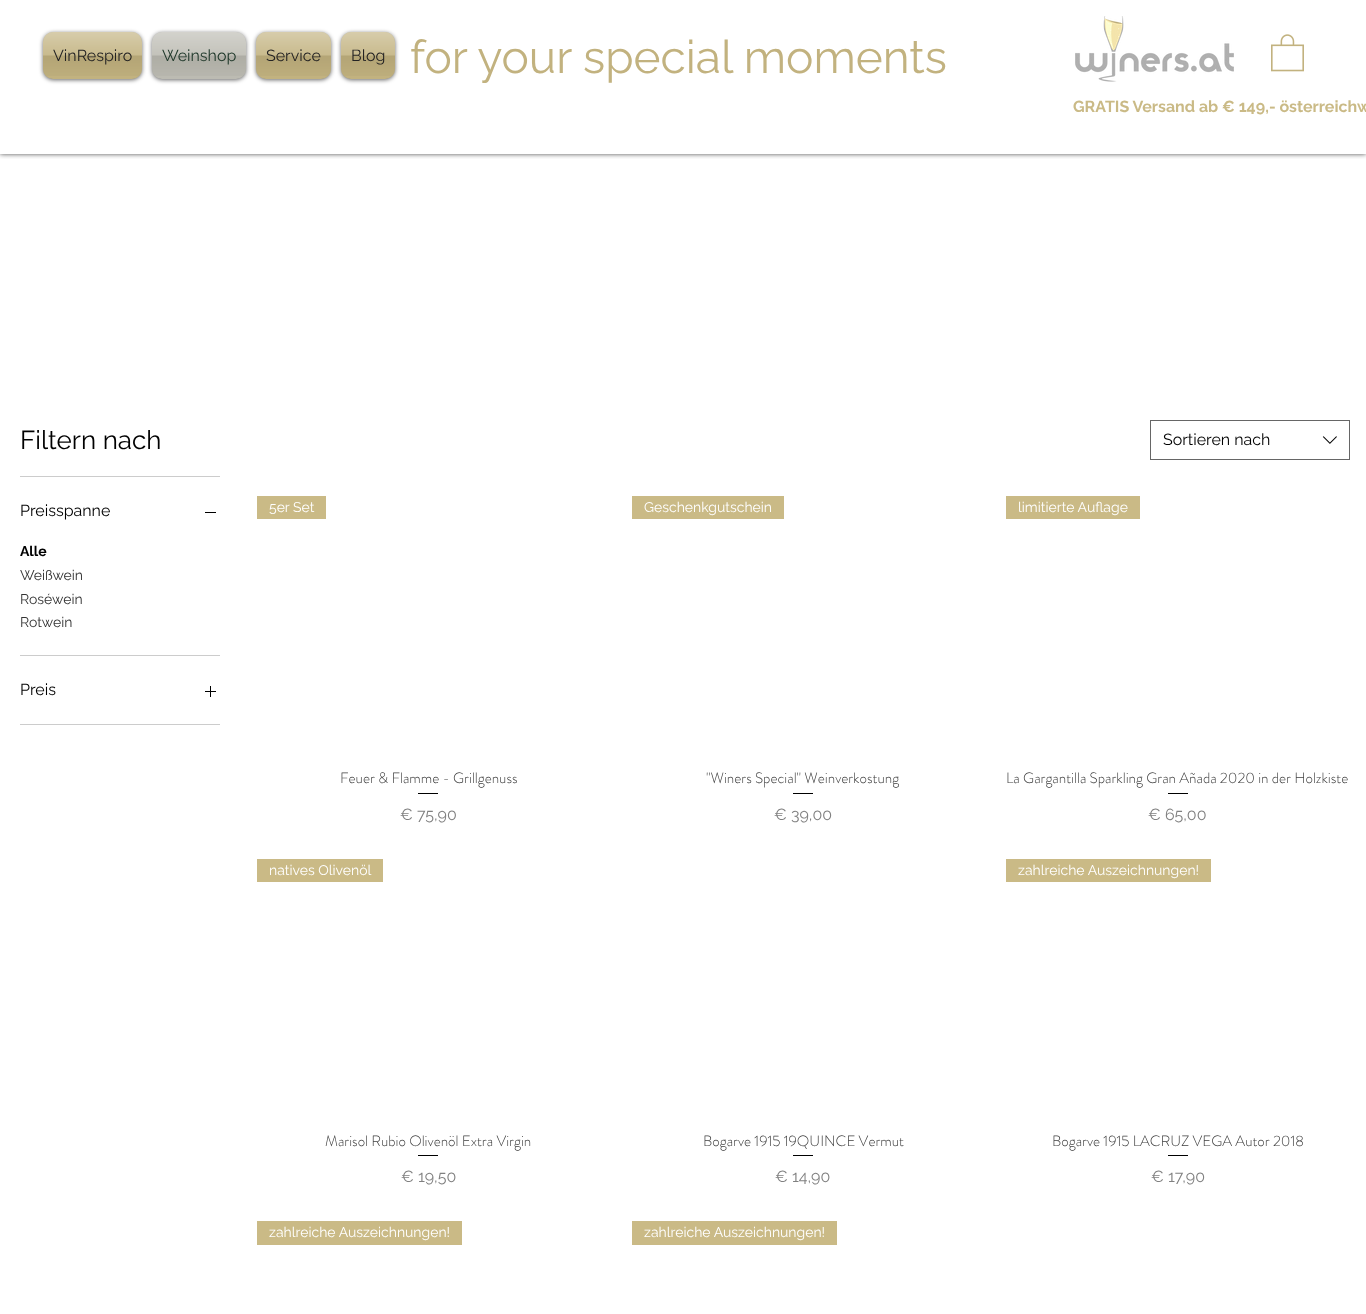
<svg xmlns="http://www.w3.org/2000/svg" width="1366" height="1314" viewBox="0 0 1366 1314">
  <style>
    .t1 { font: 16px Raleway; fill: #242323; }
    .t2 { font: 16px Raleway; fill: #213a2c; }
    .t3 { font: 46px Raleway; fill: #c2b27f; }
    .t4 { font: bold 16px Raleway; fill: #caba86; }
    .t5 { font: 26px Raleway; fill: #000; }
    .t6 { font: 16px Raleway; fill: #000; }
    .t7 { font: bold 14px Raleway; fill: #000; }
    .t8 { font: 14px Raleway; fill: #333; }
    .t9 { font: 14px Raleway; fill: #fff; }
    .t10 { font: 300 15px 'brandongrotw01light'; fill: #404040; }
    .t11 { font: 16px Raleway; fill: #808080; }
  </style>
  <defs>
    <clipPath id="clip1"><rect x="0" y="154" width="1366" height="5"/></clipPath>
  </defs>
  <rect width="100%" height="100%" fill="#fff"/>
  <g clip-path="url(#clip1)">
    <rect x="0" y="0" width="1366" height="154" fill="#000000b3" filter="blur(2.5px)"/>
  </g>
  <image x="1271" y="34" width="33" height="38" href="images/1.png"/>
  <rect x="43" y="33" width="99" height="47" rx="10" fill="#00000099" filter="blur(2px)"/>
  <rect x="43" y="32" width="99" height="47" rx="10" fill="#c2b27f"/>
  <image x="43" y="32" width="99" height="44" href="images/2.png"/>
  <text x="53" y="61" class="t1">VinRespiro</text>
  <rect x="152" y="33" width="94" height="47" rx="10" fill="#00000099" filter="blur(2px)"/>
  <rect x="152" y="32" width="94" height="47" rx="10" fill="#bcbbb2"/>
  <image x="152" y="32" width="94" height="44" href="images/3.png"/>
  <text x="162" y="61" class="t2">Weinshop</text>
  <rect x="256" y="33" width="75" height="47" rx="10" fill="#00000099" filter="blur(2px)"/>
  <rect x="256" y="32" width="75" height="47" rx="10" fill="#c2b27f"/>
  <image x="256" y="32" width="75" height="44" href="images/4.png"/>
  <text x="266" y="61" class="t1">Service</text>
  <rect x="341" y="33" width="54" height="47" rx="10" fill="#00000099" filter="blur(2px)"/>
  <rect x="341" y="32" width="54" height="47" rx="10" fill="#c2b27f"/>
  <image x="341" y="32" width="54" height="44" href="images/5.png"/>
  <text x="351" y="61" class="t1">Blog</text>
  <text x="410" y="73" class="t3">for your special moments</text>
  <image x="1075" y="16" width="159" height="66" href="images/6.png"/>
  <rect x="482" y="83" width="4" height="1" fill="#fff"/>
  <text x="1073" y="112" class="t4">GRATIS Versand ab € 149,- österreichw</text>
  <rect x="20" y="476" width="200" height="1" fill="#ccc"/>
  <text x="20" y="449" class="t5">Filtern nach</text>
  <rect x="20" y="655" width="200" height="1" fill="#ccc"/>
  <text x="20" y="516" class="t6">Preisspanne</text>
  <rect x="205" y="512" width="11" height="1" fill="#000"/>
  <text x="20" y="556" class="t7">Alle</text>
  <text x="20" y="580" class="t8">Weißwein</text>
  <text x="20" y="604" class="t8">Roséwein</text>
  <text x="20" y="627" class="t8">Rotwein</text>
  <rect x="20" y="724" width="200" height="1" fill="#ccc"/>
  <text x="20" y="695" class="t6">Preis</text>
  <image x="205" y="686" width="11" height="11" href="images/7.png"/>
  <rect x="1150.5" y="420.5" width="199" height="39" fill="none" stroke="#666"/>
  <text x="1163" y="445" class="t6">Sortieren nach</text>
  <image x="1322" y="436" width="15" height="8" href="images/8.png"/>
  <rect x="257" y="496" width="69" height="23" fill="#caba86"/>
  <text x="269" y="512" class="t9">5er Set</text>
  <text x="340" y="783" class="t10">Feuer &amp; Flamme - Grillgenuss</text>
  <rect x="418" y="793" width="20" height="1" fill="#000"/>
  <text x="400" y="820" class="t11">€ 75,90</text>
  <rect x="632" y="496" width="152" height="23" fill="#caba86"/>
  <text x="644" y="512" class="t9">Geschenkgutschein</text>
  <text x="706" y="783" class="t10">"Winers Special" Weinverkostung</text>
  <rect x="793" y="793" width="20" height="1" fill="#000"/>
  <text x="774" y="820" class="t11">€ 39,00</text>
  <rect x="1006" y="496" width="134" height="23" fill="#caba86"/>
  <text x="1018" y="512" class="t9">limitierte Auflage</text>
  <text x="1006" y="783" class="t10">La Gargantilla Sparkling Gran Añada 2020 in der Holzkiste</text>
  <rect x="1168" y="793" width="20" height="1" fill="#000"/>
  <text x="1148" y="820" class="t11">€ 65,00</text>
  <rect x="257" y="859" width="126" height="23" fill="#caba86"/>
  <text x="269" y="875" class="t9">natives Olivenöl</text>
  <text x="325" y="1146" class="t10">Marisol Rubio Olivenöl Extra Virgin</text>
  <rect x="418" y="1155" width="20" height="1" fill="#000"/>
  <text x="401" y="1182" class="t11">€ 19,50</text>
  <text x="703" y="1146" class="t10">Bogarve 1915 19QUINCE Vermut</text>
  <rect x="793" y="1155" width="20" height="1" fill="#000"/>
  <text x="775" y="1182" class="t11">€ 14,90</text>
  <rect x="1006" y="859" width="205" height="23" fill="#caba86"/>
  <text x="1018" y="875" class="t9">zahlreiche Auszeichnungen!</text>
  <text x="1052" y="1146" class="t10">Bogarve 1915 LACRUZ VEGA Autor 2018</text>
  <rect x="1168" y="1155" width="20" height="1" fill="#000"/>
  <text x="1151" y="1182" class="t11">€ 17,90</text>
  <rect x="257" y="1221" width="205" height="24" fill="#caba86"/>
  <text x="269" y="1237" class="t9">zahlreiche Auszeichnungen!</text>
  <rect x="632" y="1221" width="205" height="24" fill="#caba86"/>
  <text x="644" y="1237" class="t9">zahlreiche Auszeichnungen!</text>
</svg>
